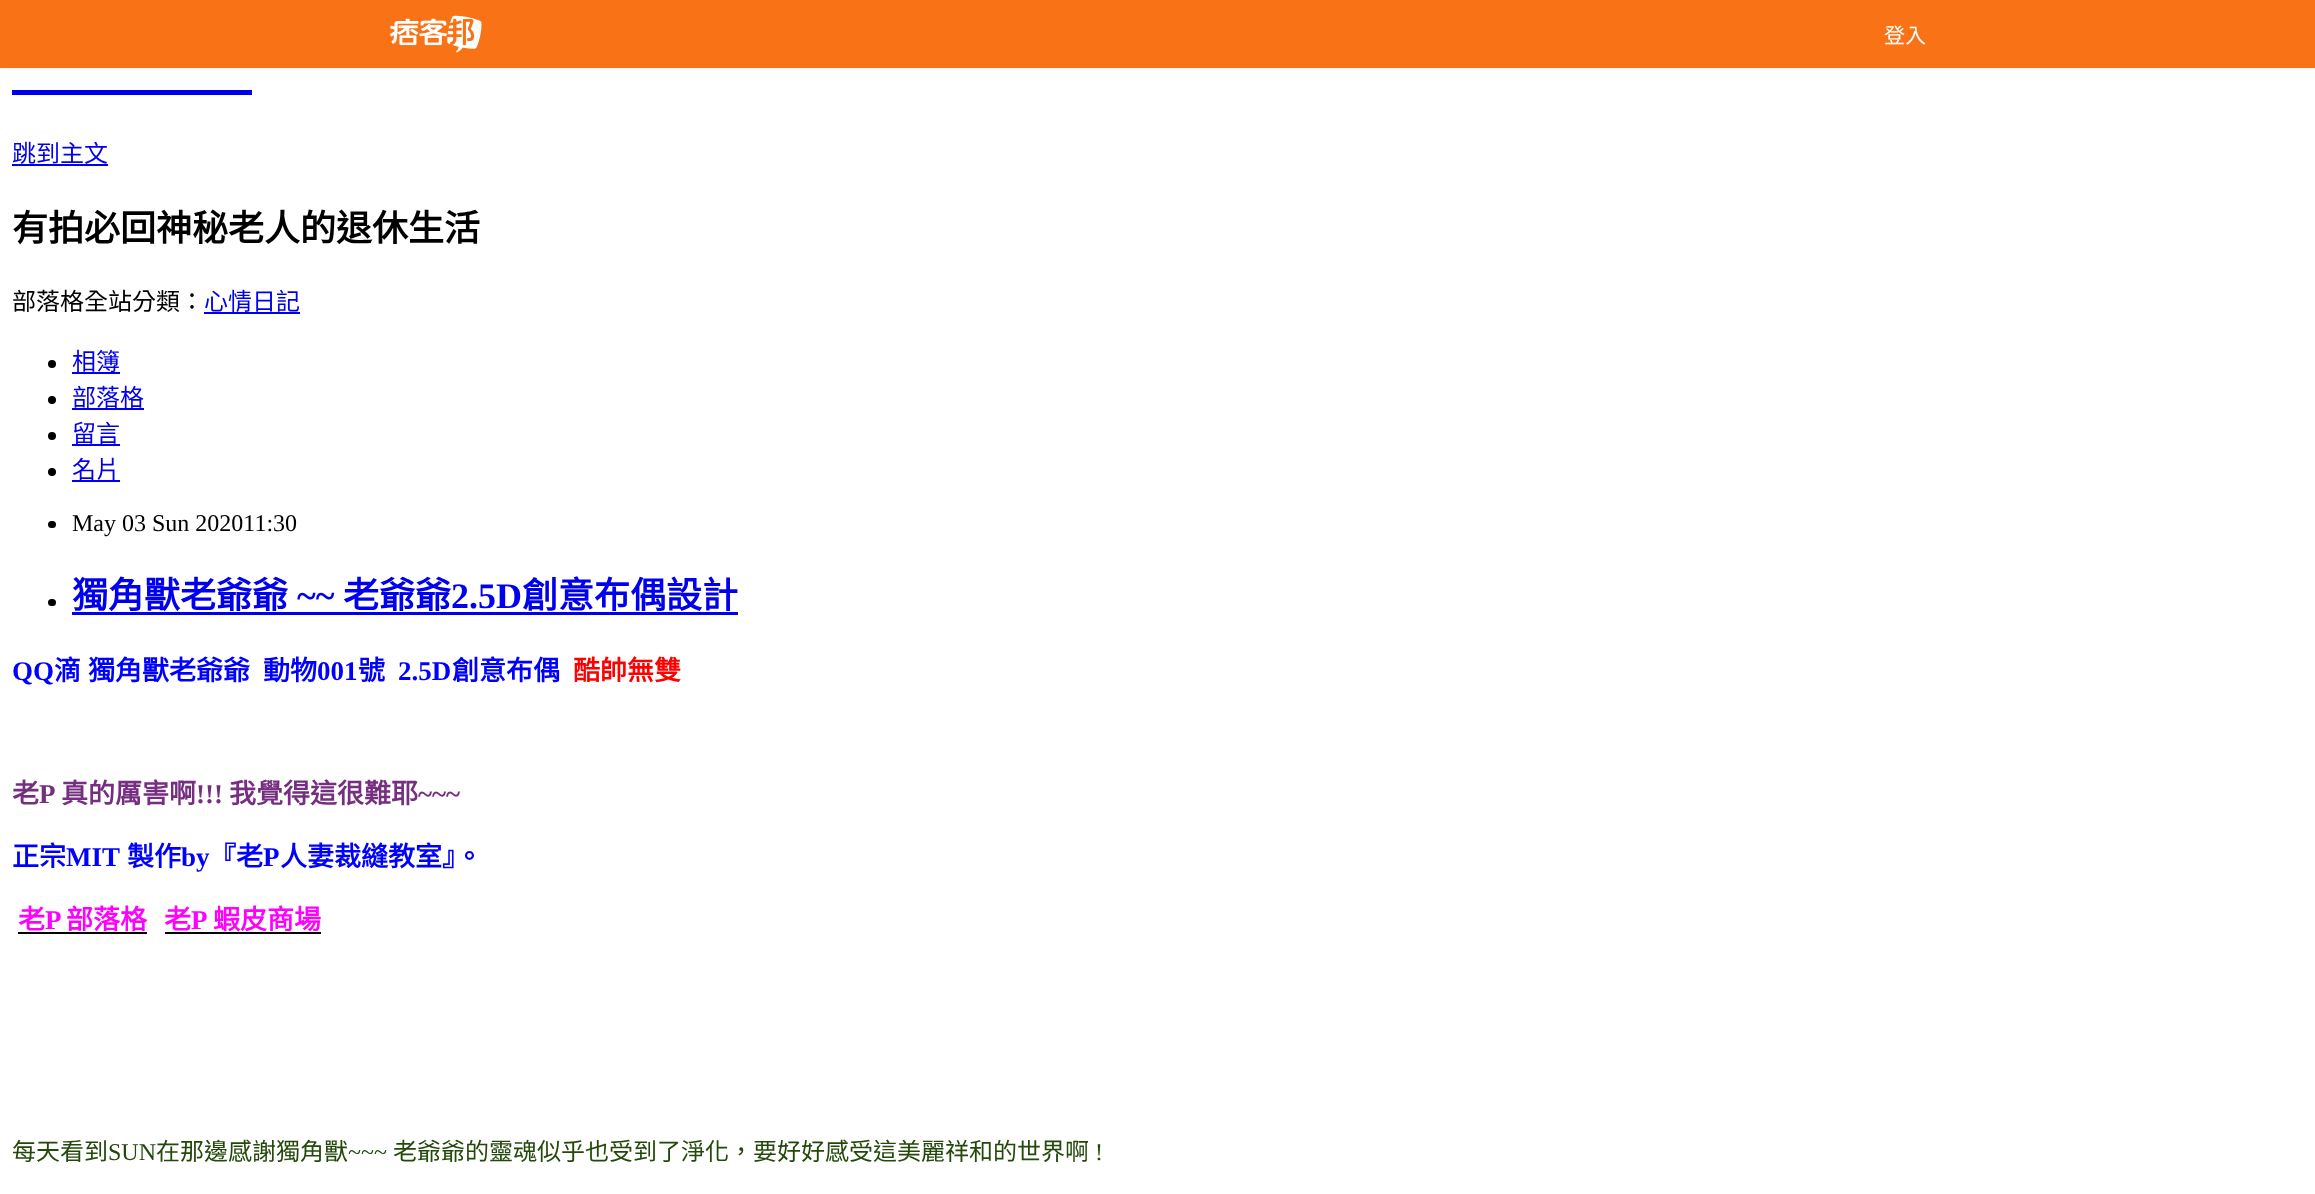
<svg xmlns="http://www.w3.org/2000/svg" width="2315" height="1194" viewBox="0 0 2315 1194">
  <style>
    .t1 { font: 21px Noto Sans CJK TC; fill: #fff; }
    .t2 { font: 24px Noto Sans CJK TC; fill: #00e; }
    .t3 { font: bold 36px Noto Sans CJK TC; fill: #000; }
    .t4 { font: 24px Noto Sans CJK TC; fill: #000; }
    .t5 { font: 24px Liberation Serif; fill: #000; }
    .t6 { font: bold 36px Noto Sans CJK TC; fill: #00e; }
    .t7 { font: bold 36px Liberation Serif; fill: #00e; }
    .t8 { font: bold 27px Liberation Serif; fill: #00f; }
    .t9 { font: bold 27px Noto Sans CJK TC; fill: #00f; }
    .t10 { font: bold 27px Noto Sans CJK TC; fill: #f00; }
    .t11 { font: bold 27px Noto Sans CJK TC; fill: #752e80; }
    .t12 { font: bold 27px Liberation Serif; fill: #752e80; }
    .t13 { font: bold 27px Noto Sans CJK TC; fill: #f0f; }
    .t14 { font: bold 27px Liberation Serif; fill: #f0f; }
    .t15 { font: 24px Noto Sans CJK TC; fill: #23480a; }
    .t16 { font: 24px Liberation Serif; fill: #23480a; }
  </style>
  <rect width="100%" height="100%" fill="#fff"/>
  <rect x="0" y="2" width="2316" height="67" fill="#0000000d" filter="blur(1.5px)"/>
  <rect x="0" y="0" width="2315" height="68" fill="#f97316"/>
  <image x="390" y="15" width="92" height="38" href="images/1.png"/>
  <text x="1884" y="43" class="t1">登入</text>
  <rect x="12" y="90" width="240" height="5" fill="#00e"/>
  <text x="12" y="162" class="t2">跳到主文</text>
  <rect x="12" y="164" width="96" height="2" fill="#00e"/>
  <text x="12" y="241" class="t3">有拍必回神秘老人的退休生活</text>
  <text x="12" y="310" class="t4">部落格全站分類：</text>
  <rect x="204" y="312" width="96" height="2" fill="#00e"/>
  <text x="204" y="310" class="t2">心情日記</text>
  <circle cx="52" cy="364" r="4" fill="#000"/>
  <text x="72" y="370" class="t2">相簿</text>
  <rect x="72" y="372" width="48" height="2" fill="#00e"/>
  <circle cx="52" cy="400" r="4" fill="#000"/>
  <text x="72" y="406" class="t2">部落格</text>
  <rect x="72" y="408" width="72" height="2" fill="#00e"/>
  <circle cx="52" cy="436" r="4" fill="#000"/>
  <text x="72" y="442" class="t2">留言</text>
  <rect x="72" y="444" width="48" height="2" fill="#00e"/>
  <circle cx="52" cy="472" r="4" fill="#000"/>
  <text x="72" y="478" class="t2">名片</text>
  <rect x="72" y="480" width="48" height="2" fill="#00e"/>
  <rect x="48" y="521" width="8" height="7" rx="3.5" fill="#000"/>
  <text x="72" y="531" class="t5">May 03 Sun 202011:30</text>
  <rect x="48" y="599" width="8" height="7" rx="3.5" fill="#000"/>
  <text x="72" y="608" class="t6">獨角獸老爺爺</text>
  <text x="297" y="608" class="t7">~~</text>
  <text x="343" y="608" class="t6">老爺爺</text>
  <text x="451" y="608" class="t7">2.5D</text>
  <rect x="72" y="612" width="666" height="3" fill="#00e"/>
  <text x="522" y="608" class="t6">創意布偶設計</text>
  <text x="12" y="680" class="t8">QQ</text>
  <text x="54" y="680" class="t9">滴</text>
  <text x="88" y="680" class="t9">獨角獸老爺爺</text>
  <text x="263" y="680" class="t9">動物</text>
  <text x="317" y="680" class="t8">001</text>
  <text x="358" y="680" class="t9">號</text>
  <text x="398" y="680" class="t8">2.5D</text>
  <text x="452" y="680" class="t9">創意布偶</text>
  <text x="573" y="680" class="t10">酷帥無雙</text>
  <text x="12" y="803" class="t11">老</text>
  <text x="39" y="803" class="t12">P</text>
  <text x="61" y="803" class="t11">真的厲害啊</text>
  <text x="196" y="803" class="t12">!!!</text>
  <text x="229" y="803" class="t11">我覺得這很難耶</text>
  <text x="418" y="803" class="t12">~~~</text>
  <text x="12" y="866" class="t9">正宗</text>
  <text x="66" y="866" class="t8">MIT</text>
  <text x="127" y="866" class="t9">製作</text>
  <text x="181" y="866" class="t8">by</text>
  <text x="209" y="866" class="t9">『老</text>
  <text x="263" y="866" class="t8">P</text>
  <text x="280" y="866" class="t9">人妻裁縫教室』。</text>
  <text x="18" y="929" class="t13">老</text>
  <text x="45" y="929" class="t14">P</text>
  <rect x="18" y="932" width="129" height="2" fill="#000"/>
  <text x="66" y="929" class="t13">部落格</text>
  <text x="164" y="929" class="t13">老</text>
  <text x="191" y="929" class="t14">P</text>
  <rect x="165" y="932" width="156" height="2" fill="#000"/>
  <text x="213" y="929" class="t13">蝦皮商場</text>
  <text x="12" y="1160" class="t15">每天看到</text>
  <text x="108" y="1160" class="t16">SUN</text>
  <text x="156" y="1160" class="t15">在那邊感謝獨角獸</text>
  <text x="348" y="1160" class="t16">~~~</text>
  <text x="393" y="1160" class="t15">老爺爺的靈魂似乎也受到了淨化，要好好感受這美麗祥和的世界啊</text>
  <text x="1095" y="1160" class="t16">!</text>
</svg>
